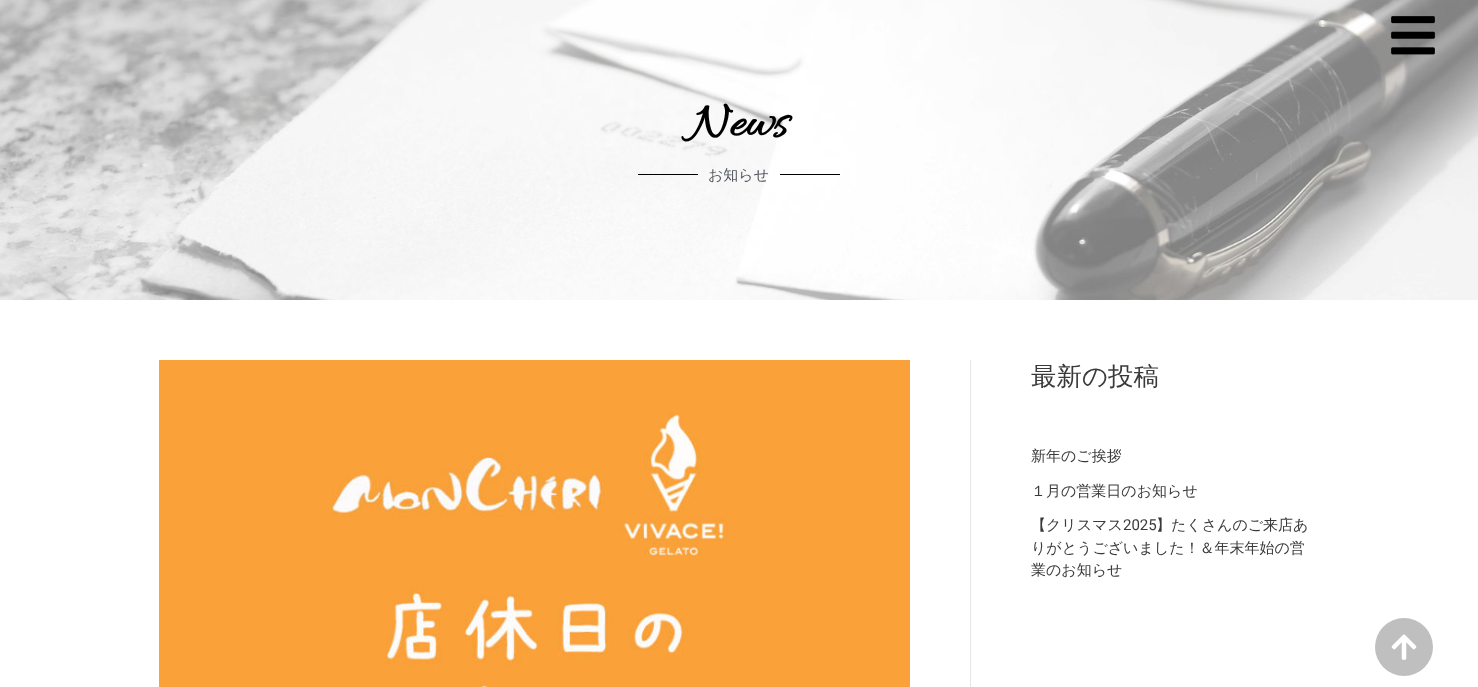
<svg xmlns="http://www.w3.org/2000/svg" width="1478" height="687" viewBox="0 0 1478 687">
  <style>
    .t1 { font: bold 50px Allura; fill: #000; }
    .t2 { font: 500 15px WenQuanYi Zen Hei; fill: #54595f; }
    .t3 { font: 500 25.5px WenQuanYi Zen Hei; fill: #3a3a3a; }
    .t4 { font: 500 15px WenQuanYi Zen Hei; fill: #3a3a3a; }
    .t5 { font: 15px Roboto; fill: #3a3a3a; }
  </style>
  <rect width="100%" height="100%" fill="#fff"/>
  <image x="0" y="0" width="1478" height="300" href="images/2.png"/>
  <image x="1391" y="16" width="44" height="39" href="images/1.png"/>
  <text x="690" y="135" class="t1">News</text>
  <rect x="638" y="174" width="60" height="1" fill="#000"/>
  <text x="708" y="180" class="t2">お知らせ</text>
  <rect x="780" y="174" width="60" height="1" fill="#000"/>
  <rect x="970" y="360" width="1" height="327" fill="#e5e5e5"/>
  <image x="159" y="360" width="751" height="327" href="images/3.png"/>
  <text x="1031" y="385" class="t3">最新の投稿</text>
  <text x="1031" y="461" class="t4">新年のご挨拶</text>
  <text x="1031" y="496" class="t4">１月の営業日のお知らせ</text>
  <text x="1031" y="530" class="t4">【クリスマス</text>
  <text x="1123" y="530" class="t5">2025</text>
  <text x="1156" y="530" class="t4">】たくさんのご来店あ</text>
  <text x="1031" y="553" class="t4">りがとうございました！＆年末年始の営</text>
  <text x="1031" y="575" class="t4">業のお知らせ</text>
  <circle cx="1404" cy="647" r="29" fill="#bfbfbf"/>
  <image x="1391" y="634" width="26" height="26" href="images/4.png"/>
</svg>
